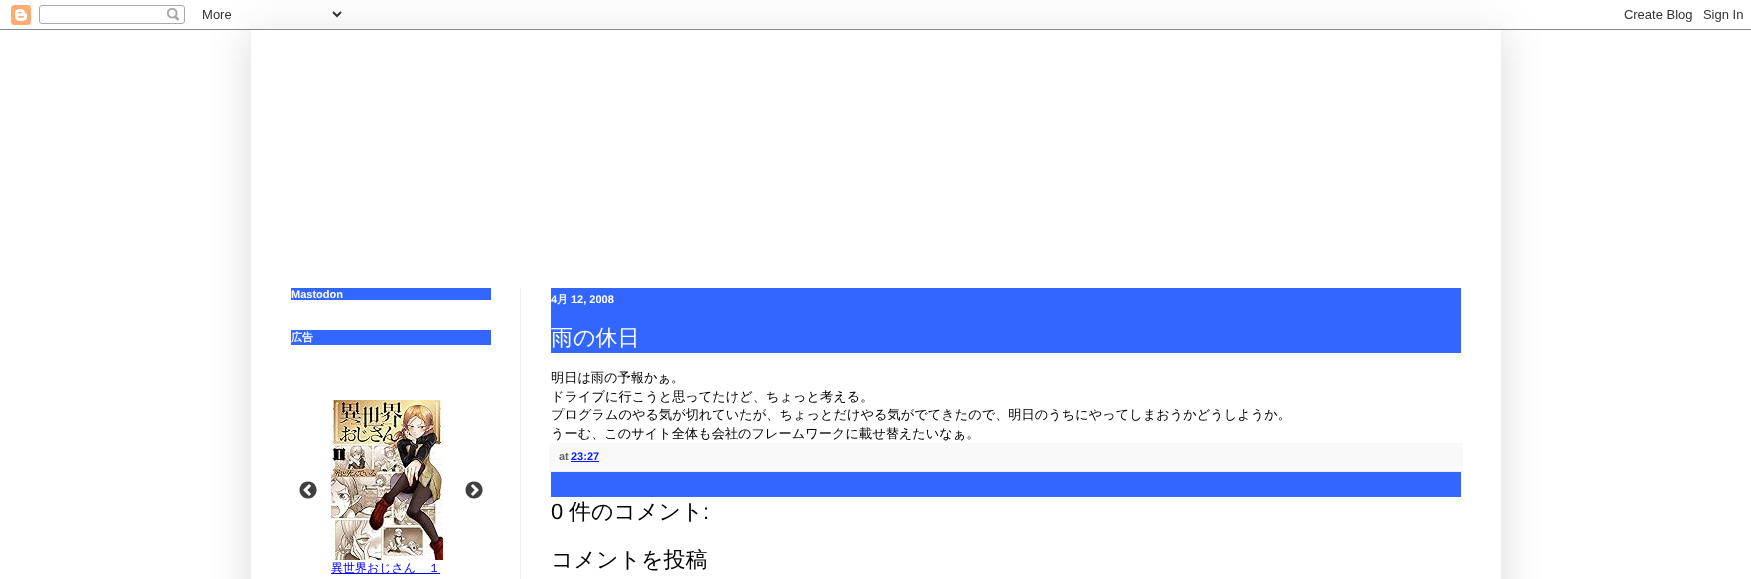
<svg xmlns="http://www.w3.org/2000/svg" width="1751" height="579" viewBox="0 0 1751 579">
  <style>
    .t1 { font: bold 11px Liberation Sans; fill: #fff; }
    .t2 { font: bold 11px WenQuanYi Zen Hei; fill: #fff; }
    .t3 { font: 500 22px WenQuanYi Zen Hei; fill: #fff; }
    .t4 { font: 500 13.2px WenQuanYi Zen Hei; fill: #000; }
    .t5 { font: bold 11px Liberation Sans; fill: #666; }
    .t6 { font: bold 11px Liberation Sans; fill: #061aff; }
    .t7 { font: 22px Liberation Sans; fill: #000; }
    .t8 { font: 500 22px WenQuanYi Zen Hei; fill: #000; }
  </style>
  <defs>
    <clipPath id="clip1"><path d="M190 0H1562V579H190ZM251 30H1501V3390H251Z" clip-rule="evenodd"/></clipPath>
  </defs>
  <rect width="100%" height="100%" fill="#fff"/>
  <g clip-path="url(#clip1)">
    <rect x="251" y="30" width="1250" height="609" fill="#00000026" filter="blur(20px)"/>
  </g>
  <image x="0" y="5" width="1751" height="25" href="images/1.png"/>
  <rect x="520" y="288" width="1" height="291" fill="#eee"/>
  <rect x="291" y="288" width="200" height="12" fill="#36f"/>
  <text x="291" y="298" class="t1">Mastodon</text>
  <rect x="291" y="330" width="200" height="15" fill="#36f"/>
  <text x="291" y="341" class="t2">広告</text>
  <image x="299" y="400" width="184" height="174" href="images/2.png"/>
  <rect x="551" y="288" width="910" height="209" fill="#36f"/>
  <text x="551" y="303" class="t1">4</text>
  <text x="557" y="303" class="t2">月</text>
  <text x="571" y="303" class="t1">12, 2008</text>
  <text x="551" y="345" class="t3">雨の休日</text>
  <rect x="551" y="353" width="910" height="90" fill="#fff"/>
  <text x="551" y="382" class="t4">明日は雨の予報かぁ。</text>
  <text x="551" y="401" class="t4">ドライブに行こうと思ってたけど、ちょっと考える。</text>
  <text x="551" y="419" class="t4">プログラムのやる気が切れていたが、ちょっとだけやる気がでてきたので、明日のうちにやってしまおうかどうしようか。</text>
  <text x="551" y="438" class="t4">うーむ、このサイト全体も会社のフレームワークに載せ替えたいなぁ。</text>
  <rect x="549" y="443" width="914" height="28" fill="#f9f9f9"/>
  <rect x="549" y="471" width="914" height="1" fill="#eee"/>
  <text x="559" y="460" class="t5">at</text>
  <text x="571" y="460" class="t6">23:27</text>
  <rect x="571" y="461" width="28" height="1" fill="#061aff"/>
  <text x="551" y="519" class="t7">0</text>
  <text x="569" y="519" class="t8">件のコメント</text>
  <text x="703" y="519" class="t7">:</text>
  <text x="551" y="567" class="t8">コメントを投稿</text>
</svg>
